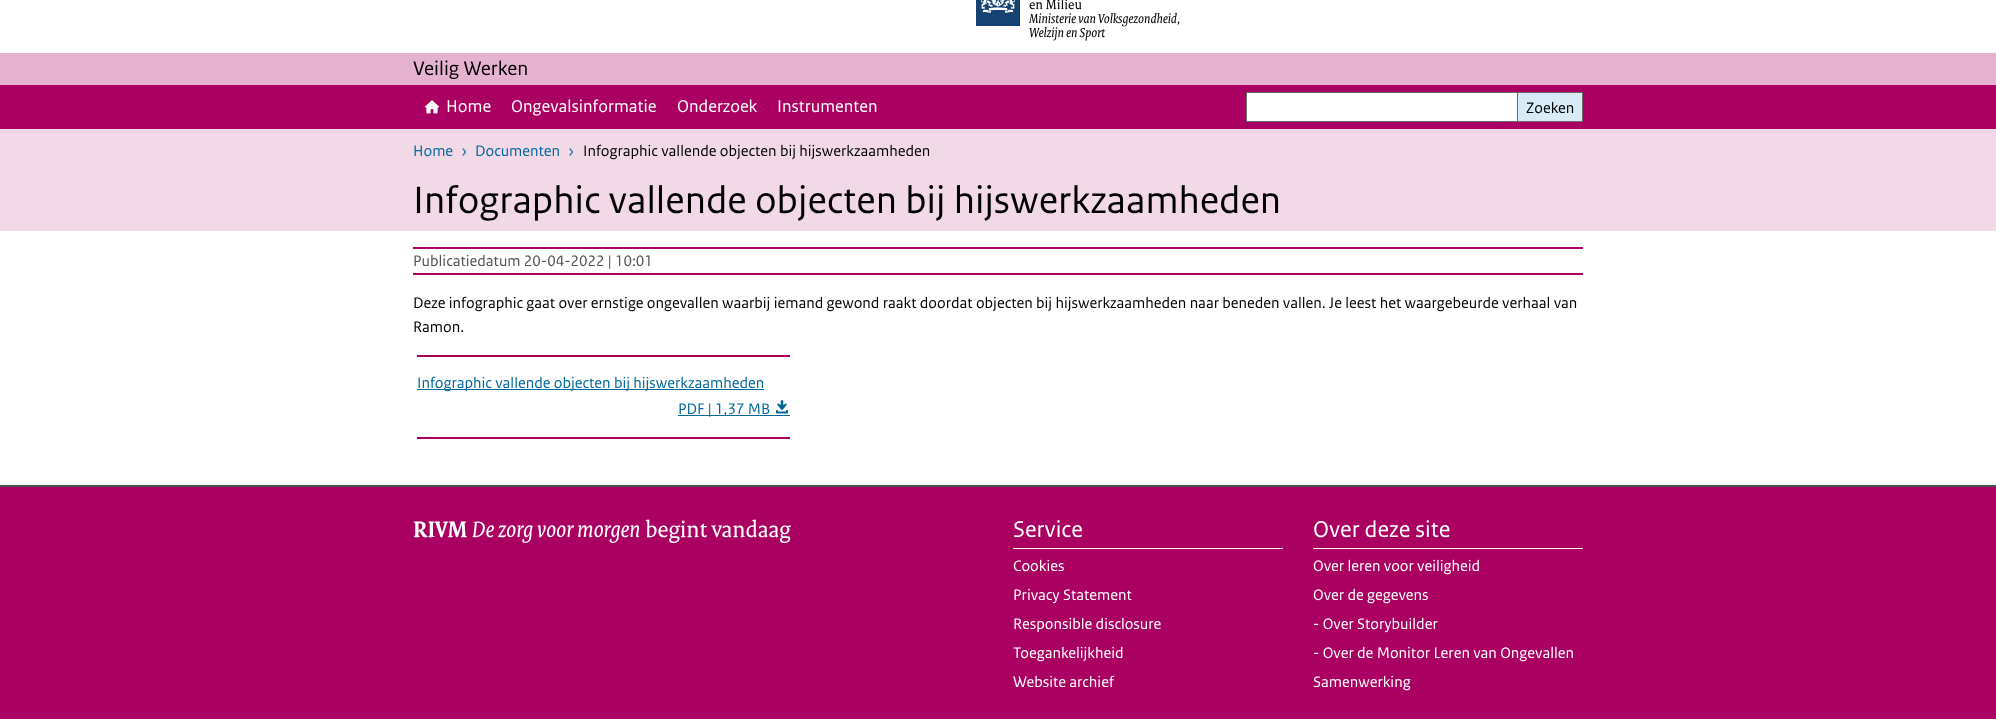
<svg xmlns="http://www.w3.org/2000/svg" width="1996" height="720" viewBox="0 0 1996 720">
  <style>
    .t1 { font: 14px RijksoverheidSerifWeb; fill: #000; }
    .t2 { font: italic 14px RijksoverheidSerifWeb; fill: #000; }
    .t3 { font: 20.75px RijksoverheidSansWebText; fill: #000; }
    .t4 { font: 18px RijksoverheidSansWebText; fill: #fff; }
    .t5 { font: 16px RijksoverheidSansWebText; fill: #000; }
    .t6 { font: 16px RijksoverheidSansWebText; fill: #01689b; }
    .t7 { font: 40px RijksoverheidSansWebText; fill: #000; }
    .t8 { font: 16px RijksoverheidSansWebText; fill: #535353; }
    .t9 { font: bold 24px RijksoverheidSerifWeb; fill: #fff; }
    .t10 { font: italic 24px RijksoverheidSerifWeb; fill: #fff; }
    .t11 { font: 24px RijksoverheidSerifWeb; fill: #fff; }
    .t12 { font: 24px RijksoverheidSansWebText; fill: #fff; }
    .t13 { font: 16px RijksoverheidSansWebText; fill: #fff; }
  </style>
  <rect width="100%" height="100%" fill="#fff"/>
  <image x="976" y="0" width="44" height="26" href="images/1.png"/>
  <text x="1029" y="9" class="t1">en Milieu</text>
  <text x="1029" y="23" class="t2">Ministerie van Volksgezondheid,</text>
  <text x="1029" y="37" class="t2">Welzijn en Sport</text>
  <rect x="0" y="53" width="1996" height="32" fill="#e5b2cf"/>
  <text x="413" y="75" class="t3">Veilig Werken</text>
  <rect x="0" y="85" width="1996" height="44" fill="#a90061"/>
  <image x="425" y="100" width="14" height="14" href="images/2.png"/>
  <text x="446" y="112" class="t4">Home</text>
  <text x="511" y="112" class="t4">Ongevalsinformatie</text>
  <text x="677" y="112" class="t4">Onderzoek</text>
  <text x="777" y="112" class="t4">Instrumenten</text>
  <rect x="1246.5" y="92.5" width="271" height="29" fill="#fff" stroke="#696969"/>
  <rect x="1518" y="93" width="64" height="28" fill="#d9ebf7"/>
  <rect x="1518" y="92" width="65" height="1" fill="#696969"/>
  <rect x="1582" y="92" width="1" height="30" fill="#696969"/>
  <rect x="1518" y="121" width="65" height="1" fill="#696969"/>
  <text x="1526" y="113" class="t5">Zoeken</text>
  <rect x="0" y="129" width="1996" height="102" fill="#f2d9e7"/>
  <text x="413" y="156" class="t6">Home</text>
  <text x="461" y="156" class="t6">›</text>
  <text x="475" y="156" class="t6">Documenten</text>
  <text x="568" y="156" class="t6">›</text>
  <text x="583" y="156" class="t5">Infographic vallende objecten bij hijswerkzaamheden</text>
  <text x="413" y="213" class="t7">Infographic vallende objecten bij hijswerkzaamheden</text>
  <rect x="413" y="247" width="1170" height="2" fill="#a90061"/>
  <rect x="413" y="273" width="1170" height="2" fill="#a90061"/>
  <text x="413" y="266" class="t8">Publicatiedatum 20-04-2022 | 10:01</text>
  <text x="413" y="308" class="t5">Deze infographic gaat over ernstige ongevallen waarbij iemand gewond raakt doordat objecten bij hijswerkzaamheden naar beneden vallen. Je leest het waargebeurde verhaal van</text>
  <text x="413" y="332" class="t5">Ramon.</text>
  <rect x="417" y="355" width="373" height="2" fill="#a90061"/>
  <rect x="417" y="389" width="347" height="1" fill="#01689b"/>
  <text x="417" y="388" class="t6">Infographic vallende objecten bij hijswerkzaamheden</text>
  <rect x="678" y="415" width="112" height="1" fill="#01689b"/>
  <text x="678" y="414" class="t6">PDF | 1,37 MB</text>
  <image x="776" y="400" width="12" height="14" href="images/3.png"/>
  <rect x="417" y="437" width="373" height="2" fill="#a90061"/>
  <rect x="0" y="487" width="1996" height="232" fill="#a90061"/>
  <rect x="0" y="485" width="1996" height="2" fill="#4e4e4e"/>
  <text x="413" y="537" class="t9">RIVM</text>
  <text x="472" y="537" class="t10">De zorg voor morgen</text>
  <text x="645" y="537" class="t11">begint vandaag</text>
  <rect x="1013" y="548" width="270" height="1" fill="#fff"/>
  <text x="1013" y="537" class="t12">Service</text>
  <text x="1013" y="571" class="t13">Cookies</text>
  <text x="1013" y="600" class="t13">Privacy Statement</text>
  <text x="1013" y="629" class="t13">Responsible disclosure</text>
  <text x="1013" y="658" class="t13">Toegankelijkheid</text>
  <text x="1013" y="687" class="t13">Website archief</text>
  <rect x="1313" y="548" width="270" height="1" fill="#fff"/>
  <text x="1313" y="537" class="t12">Over deze site</text>
  <text x="1313" y="571" class="t13">Over leren voor veiligheid</text>
  <text x="1313" y="600" class="t13">Over de gegevens</text>
  <text x="1313" y="629" class="t13">- Over Storybuilder</text>
  <text x="1313" y="658" class="t13">- Over de Monitor Leren van Ongevallen</text>
  <text x="1313" y="687" class="t13">Samenwerking</text>
</svg>
